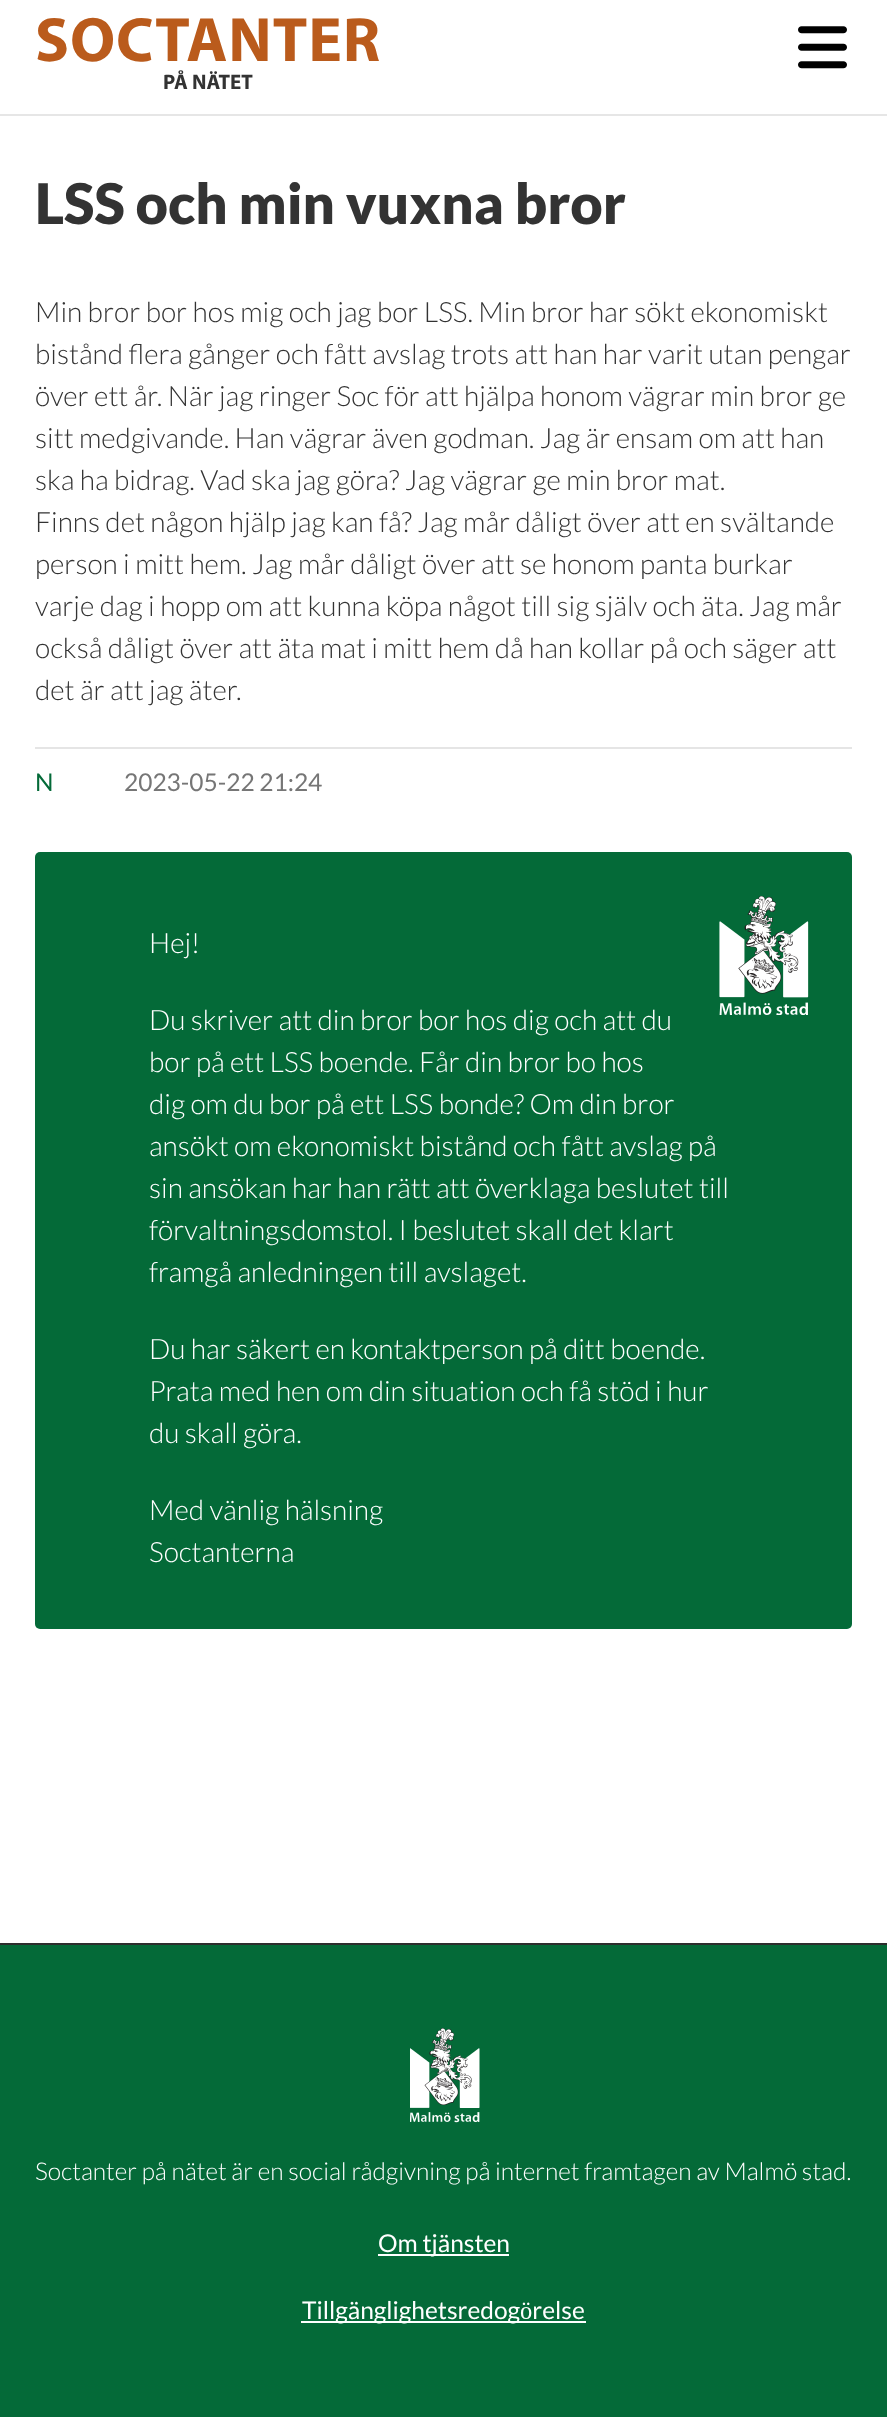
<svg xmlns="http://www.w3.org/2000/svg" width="887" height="2417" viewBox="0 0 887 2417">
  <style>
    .t1 { font: bold 63px Myriad; letter-spacing: 0.9px; fill: #ba5b1c; }
    .t2 { font: bold 21px Myriad; fill: #333; }
    .t3 { font: 900 56px Lato; fill: #333; }
    .t4 { font: 300 28px Lato; fill: #333; }
    .t5 { font: 24.5px Lato; fill: #046a38; }
    .t6 { font: 24.5px Lato; fill: #767676; }
    .t7 { font: 300 28px Lato; fill: #fff; }
    .t8 { font: 300 24.5px Lato; fill: #fff; }
    .t9 { font: 24.5px Lato; fill: #fff; }
  </style>
  <rect width="100%" height="100%" fill="#fff"/>
  <rect x="0" y="114" width="887" height="2" fill="#e6e6e6"/>
  <text x="35" y="61" class="t1">SOCTANTER</text>
  <text x="163" y="89" class="t2">PÅ NÄTET</text>
  <image x="798" y="26" width="49" height="43" href="images/1.png"/>
  <text x="35" y="224" class="t3">LSS och min vuxna bror</text>
  <text x="35" y="322" class="t4">Min bror bor hos mig och jag bor LSS. Min bror har sökt ekonomiskt</text>
  <text x="35" y="364" class="t4">bistånd flera gånger och fått avslag trots att han har varit utan pengar</text>
  <text x="35" y="406" class="t4">över ett år. När jag ringer Soc för att hjälpa honom vägrar min bror ge</text>
  <text x="35" y="448" class="t4">sitt medgivande. Han vägrar även godman. Jag är ensam om att han</text>
  <text x="35" y="490" class="t4">ska ha bidrag. Vad ska jag göra? Jag vägrar ge min bror mat.</text>
  <text x="35" y="532" class="t4">Finns det någon hjälp jag kan få? Jag mår dåligt över att en svältande</text>
  <text x="35" y="574" class="t4">person i mitt hem. Jag mår dåligt över att se honom panta burkar</text>
  <text x="35" y="616" class="t4">varje dag i hopp om att kunna köpa något till sig själv och äta. Jag mår</text>
  <text x="35" y="658" class="t4">också dåligt över att äta mat i mitt hem då han kollar på och säger att</text>
  <text x="35" y="700" class="t4">det är att jag äter.</text>
  <rect x="35" y="747" width="817" height="2" fill="#e5e5e5"/>
  <text x="35" y="791" class="t5">N</text>
  <text x="124" y="791" class="t6">2023-05-22 21:24</text>
  <rect x="35" y="852" width="817" height="777" rx="5" fill="#046a38"/>
  <text x="149" y="953" class="t7">Hej!</text>
  <text x="149" y="1030" class="t7">Du skriver att din bror bor hos dig och att du</text>
  <text x="149" y="1072" class="t7">bor på ett LSS boende. Får din bror bo hos</text>
  <text x="149" y="1114" class="t7">dig om du bor på ett LSS bonde? Om din bror</text>
  <text x="149" y="1156" class="t7">ansökt om ekonomiskt bistånd och fått avslag på</text>
  <text x="149" y="1198" class="t7">sin ansökan har han rätt att överklaga beslutet till</text>
  <text x="149" y="1240" class="t7">förvaltningsdomstol. I beslutet skall det klart</text>
  <text x="149" y="1282" class="t7">framgå anledningen till avslaget.</text>
  <text x="149" y="1359" class="t7">Du har säkert en kontaktperson på ditt boende.</text>
  <text x="149" y="1401" class="t7">Prata med hen om din situation och få stöd i hur</text>
  <text x="149" y="1443" class="t7">du skall göra.</text>
  <text x="149" y="1520" class="t7">Med vänlig hälsning</text>
  <text x="149" y="1562" class="t7">Soctanterna</text>
  <image x="719" y="896" width="90" height="119" href="images/2.png"/>
  <rect x="0" y="1945" width="887" height="472" fill="#046a38"/>
  <rect x="0" y="1943" width="887" height="2" fill="#2d2d2d"/>
  <image x="410" y="2028" width="70" height="95" href="images/3.png"/>
  <text x="35" y="2180" class="t8">Soctanter på nätet är en social rådgivning på internet framtagen av Malmö stad.</text>
  <rect x="378" y="2254" width="131" height="2" fill="#fff"/>
  <text x="378" y="2252" class="t9">Om tjänsten</text>
  <rect x="301" y="2321" width="285" height="2" fill="#fff"/>
  <text x="302" y="2319" class="t9">Tillgänglighetsredogörelse</text>
</svg>
